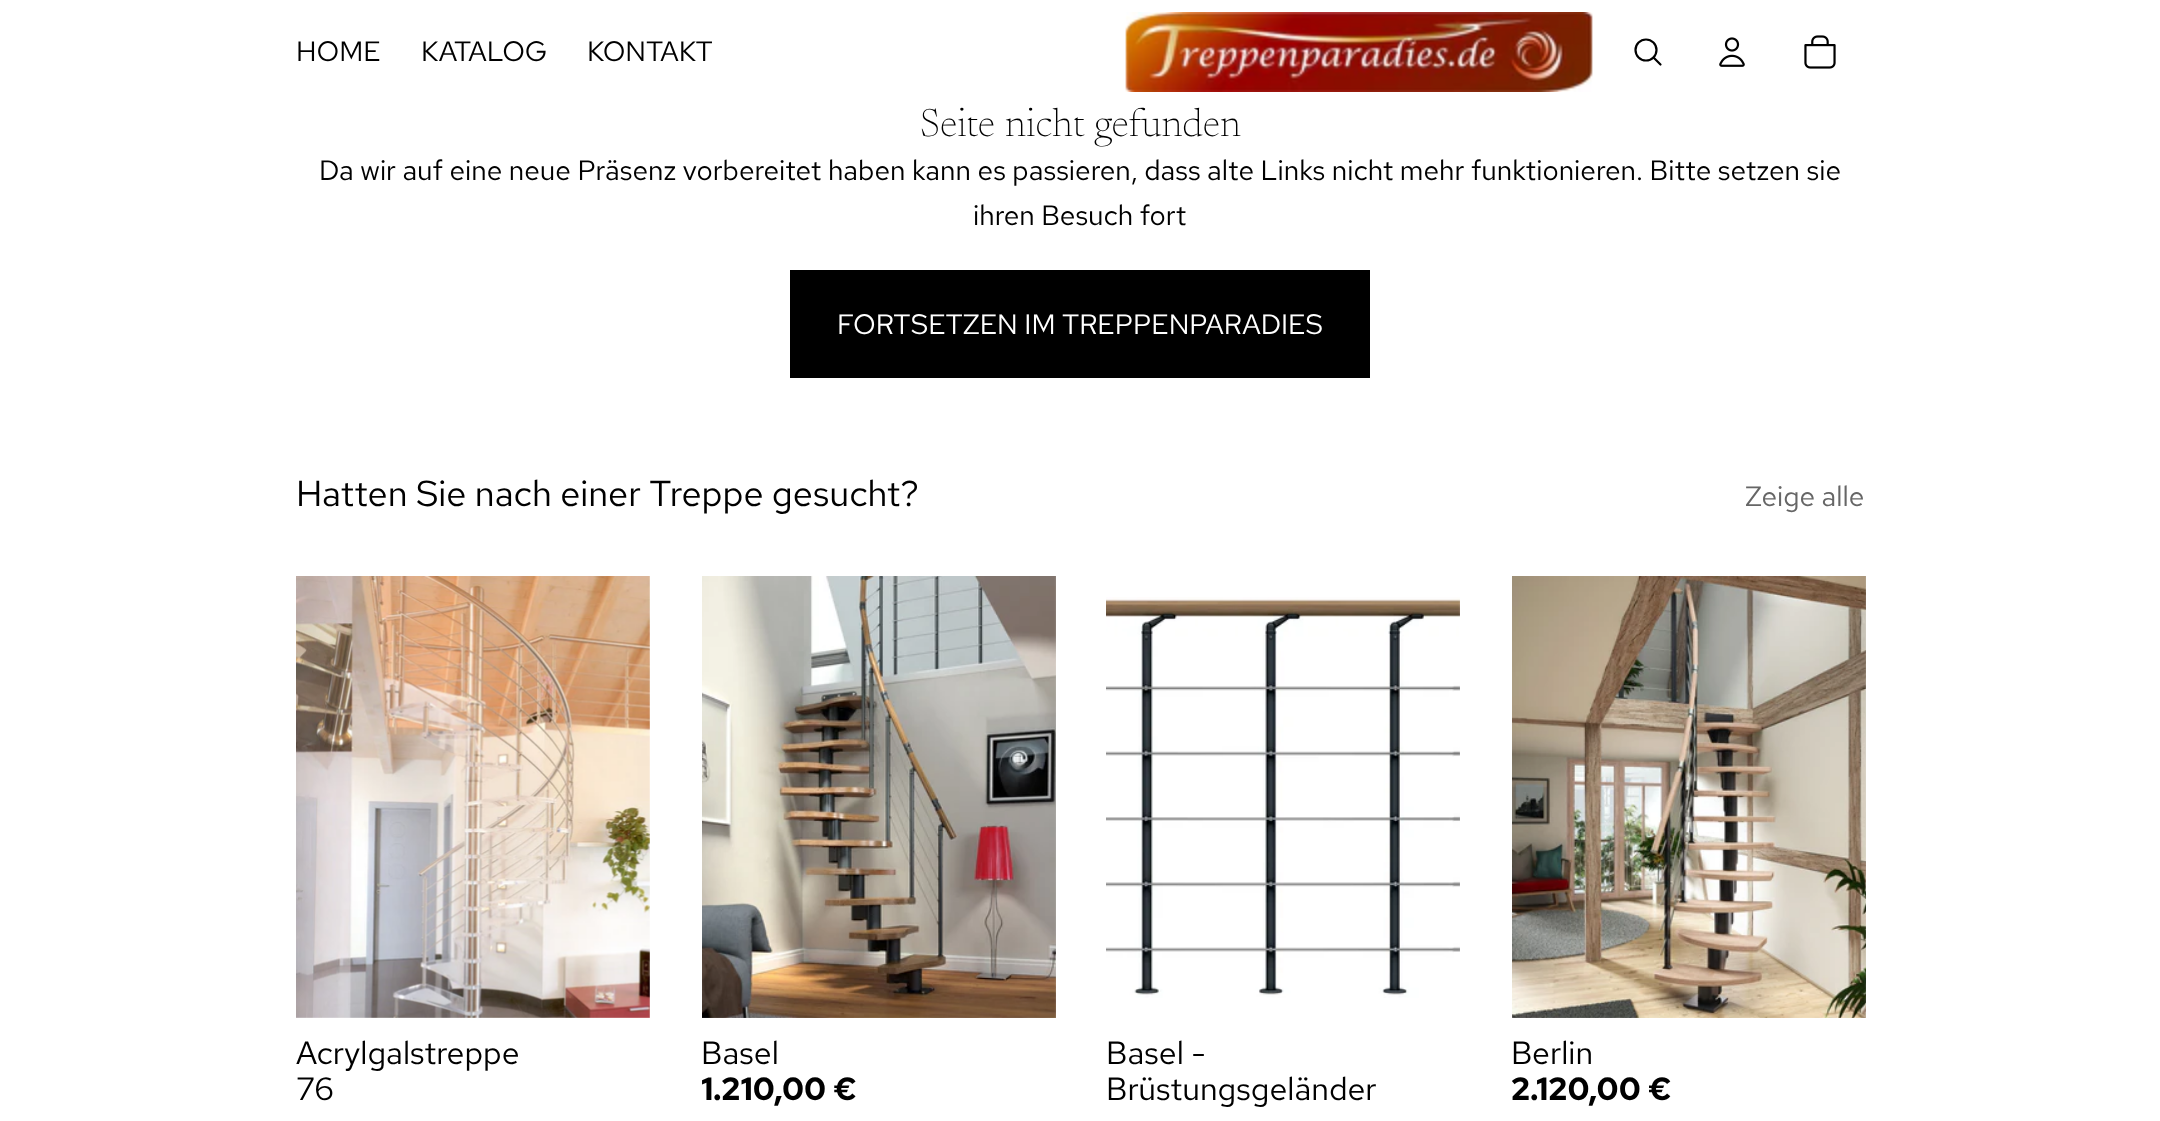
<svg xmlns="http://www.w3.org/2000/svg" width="2160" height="1121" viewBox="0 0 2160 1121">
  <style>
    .t1 { font: 28px Red Hat Text; fill: #000; }
    .t2 { font: 200 40px Newsreader; fill: #000; }
    .t3 { font: 28px Red Hat Text; fill: #fff; }
    .t4 { font: 36px Red Hat Text; fill: #000; }
    .t5 { font: 28px Red Hat Text; fill: #666; }
    .t6 { font: 32px Red Hat Text; fill: #000; }
    .t7 { font: bold 32px Red Hat Text; fill: #000; }
  </style>
  <rect width="100%" height="100%" fill="#fff"/>
  <text x="296" y="61" class="t1">HOME</text>
  <text x="421" y="61" class="t1">KATALOG</text>
  <text x="587" y="61" class="t1">KONTAKT</text>
  <image x="1125" y="12" width="468" height="80" href="images/1.png"/>
  <circle cx="1646" cy="50" r="10.5" fill="none" stroke="#000" stroke-width="2.2"/>
  <path d="M1653.5 57.5L1660.5 64.5" fill="none" stroke="#000" stroke-width="2.2" stroke-linecap="round" stroke-linejoin="round"/>
  <image x="1719" y="37" width="26" height="30" href="images/2.png"/>
  <image x="1804" y="35" width="32" height="34" href="images/3.png"/>
  <text x="920" y="136" word-spacing="1" class="t2">Seite nicht gefunden</text>
  <text x="319" y="180" class="t1">Da wir auf eine neue Präsenz vorbereitet haben kann es passieren, dass alte Links nicht mehr funktionieren. Bitte setzen sie</text>
  <text x="973" y="225" class="t1">ihren Besuch fort</text>
  <rect x="790" y="270" width="580" height="108" fill="#000"/>
  <text x="837" y="334" class="t3">FORTSETZEN IM TREPPENPARADIES</text>
  <text x="296" y="506" class="t4">Hatten Sie nach einer Treppe gesucht?</text>
  <text x="1745" y="506" class="t5">Zeige alle</text>
  <image x="296" y="576" width="354" height="442" href="images/4.png"/>
  <text x="296" y="1064" class="t6">Acrylgalstreppe</text>
  <text x="296" y="1100" class="t6">76</text>
  <image x="702" y="576" width="354" height="442" href="images/5.png"/>
  <text x="701" y="1064" class="t6">Basel</text>
  <text x="701" y="1100" class="t7">1.210,00 €</text>
  <image x="1106" y="597" width="354" height="401" href="images/6.png"/>
  <text x="1106" y="1064" class="t6">Basel -</text>
  <text x="1106" y="1100" class="t6">Brüstungsgeländer</text>
  <image x="1512" y="576" width="354" height="442" href="images/7.png"/>
  <text x="1511" y="1064" class="t6">Berlin</text>
  <text x="1511" y="1100" class="t7">2.120,00 €</text>
</svg>
